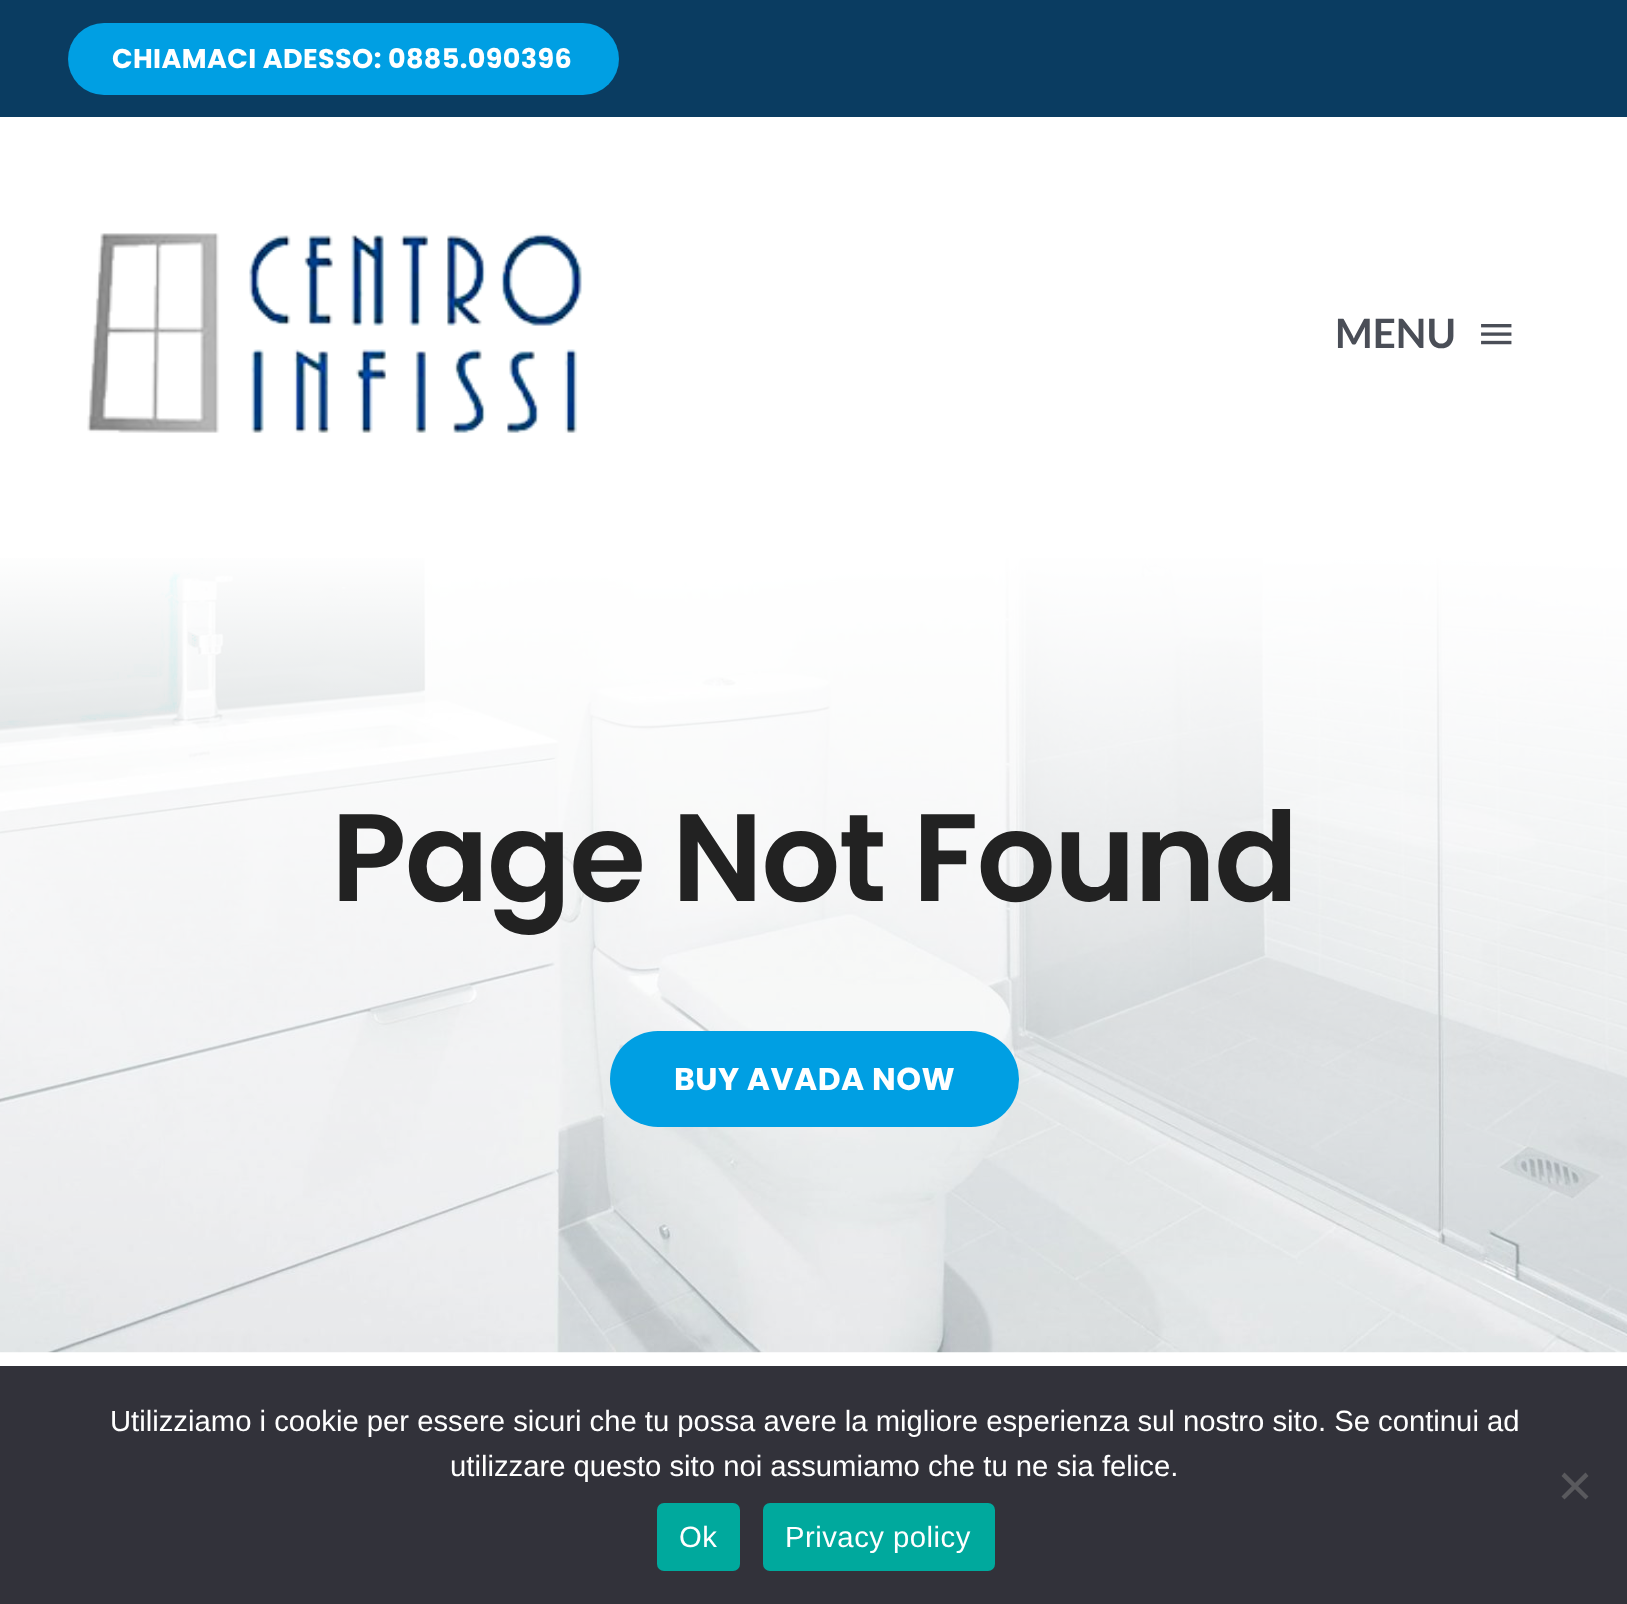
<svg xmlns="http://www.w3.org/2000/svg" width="1627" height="1604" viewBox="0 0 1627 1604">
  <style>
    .t1 { font: bold 27px Poppins; letter-spacing: 0.4px; fill: #fff; }
    .t2 { font: bold 40.5px Lato; fill: #4a4e57; }
    .t3 { font: 600 124.25px Poppins; letter-spacing: -1.9px; fill: #222; }
    .t4 { font: bold 31.5px Poppins; letter-spacing: 0.5px; fill: #fff; }
    .t5 { font: 29.25px Liberation Sans; fill: #fff; }
    .t6 { font: 29.25px Liberation Sans; letter-spacing: 0.5px; fill: #fff; }
  </style>
  <rect width="100%" height="100%" fill="#fff"/>
  <rect x="0" y="0" width="1627" height="117" fill="#0a3c61"/>
  <rect x="68" y="23" width="551" height="72" rx="36" fill="#009fe3"/>
  <text x="112" y="68" class="t1">CHIAMACI ADESSO: 0885.090396</text>
  <image x="87" y="233" width="495" height="200" href="images/1.png"/>
  <text x="1335" y="348" class="t2">MENU</text>
  <image x="1481" y="324" width="31" height="21" href="images/2.png"/>
  <image x="0" y="558" width="1627" height="795" href="images/3.png"/>
  <text x="331" y="901" class="t3">Page Not Found</text>
  <rect x="610" y="1031" width="409" height="96" rx="48" fill="#009fe3"/>
  <text x="674" y="1090" class="t4">BUY AVADA NOW</text>
  <rect x="0" y="1366" width="1627" height="238" fill="#32323a"/>
  <text x="110" y="1431" class="t5">Utilizziamo i cookie per essere sicuri che tu possa avere la migliore esperienza sul nostro sito. Se continui ad</text>
  <text x="450" y="1476" class="t5">utilizzare questo sito noi assumiamo che tu ne sia felice.</text>
  <path d="M1585.5 1472.5L1588.5 1476L1564.5 1499.5L1561.5 1496.5Z" fill="#59595d"/>
  <path d="M1561.5 1476L1564.5 1472.5L1588.5 1496.5L1585.5 1499.5Z" fill="#59595d"/>
  <rect x="657" y="1503" width="83" height="68" rx="7" fill="#00a99d"/>
  <text x="679" y="1547" class="t6">Ok</text>
  <rect x="763" y="1503" width="232" height="68" rx="7" fill="#00a99d"/>
  <text x="785" y="1547" class="t6">Privacy policy</text>
</svg>
